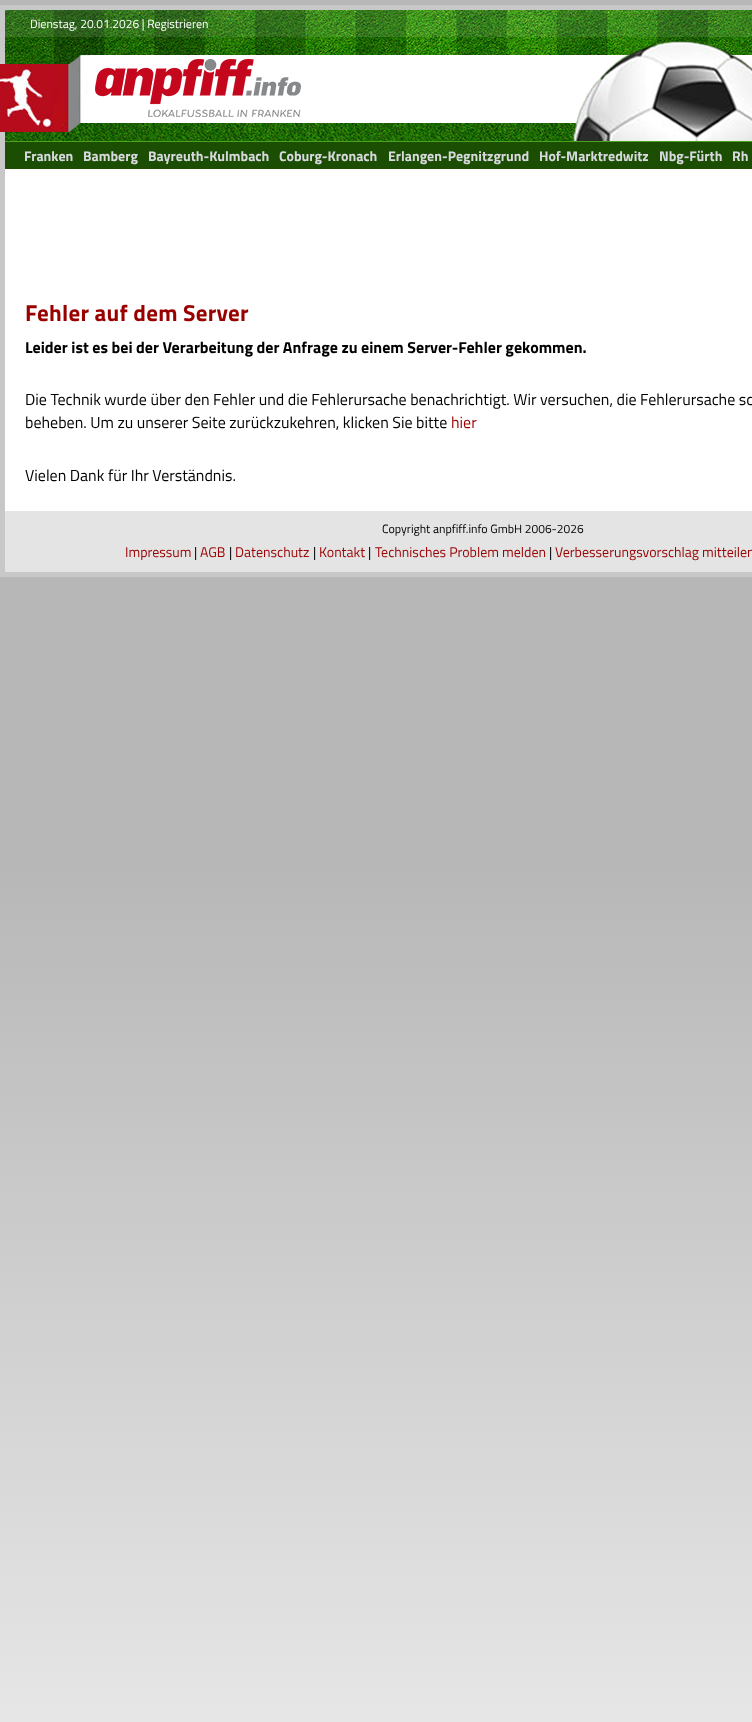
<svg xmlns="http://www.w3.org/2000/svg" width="752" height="1722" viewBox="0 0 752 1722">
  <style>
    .t1 { font: 12px Titillium Web; fill: #fff; }
    .t2 { font: bold 14px Titillium Web; fill: #d8d9df; }
    .t3 { font: bold 23px Titillium Web; letter-spacing: 0.25px; fill: #900; }
    .t4 { font: bold 16px Titillium Web; fill: #000; }
    .t5 { font: 16px Titillium Web; fill: #000; }
    .t6 { font: 16px Titillium Web; fill: #900; }
    .t7 { font: 12px Titillium Web; fill: #000; }
    .t8 { font: 14px Titillium Web; fill: #900; }
    .t9 { font: 14px Titillium Web; fill: #000; }
  </style>
  <defs>
    <linearGradient id="g1" gradientUnits="userSpaceOnUse" x1="376" y1="0" x2="376" y2="1722"><stop offset="0" stop-color="#b7b7b7"/><stop offset="0.5" stop-color="#b7b7b7"/><stop offset="1" stop-color="#e6e6e6"/></linearGradient>
  </defs>
  <rect width="100%" height="100%" fill="#fff"/>
  <rect x="0" y="0" width="752" height="1722" fill="url(#g1)"/>
  <rect x="5" y="169" width="747" height="342" fill="#fff"/>
  <rect x="2.5" y="7.5" width="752" height="567" fill="none" stroke="#c8c8c8" stroke-width="5"/>
  <image x="5" y="10" width="747" height="27" href="images/1.png"/>
  <text x="30" y="28" class="t1">Dienstag, 20.01.2026 | Registrieren</text>
  <image x="0" y="37" width="752" height="105" href="images/2.png"/>
  <image x="95" y="59" width="206" height="58" href="images/3.png"/>
  <rect x="5" y="142" width="747" height="27" fill="#1b4e03"/>
  <text x="24" y="161" class="t2">Franken</text>
  <text x="83" y="161" class="t2">Bamberg</text>
  <text x="148" y="161" class="t2">Bayreuth-Kulmbach</text>
  <text x="279" y="161" class="t2">Coburg-Kronach</text>
  <text x="388" y="161" class="t2">Erlangen-Pegnitzgrund</text>
  <text x="539" y="161" class="t2">Hof-Marktredwitz</text>
  <text x="659" y="161" class="t2">Nbg-Fürth</text>
  <text x="732" y="161" class="t2">Rh</text>
  <text x="25" y="321" class="t3">Fehler auf dem Server</text>
  <text x="25" y="353" class="t4">Leider ist es bei der Verarbeitung der Anfrage zu einem Server-Fehler gekommen.</text>
  <text x="25" y="405" class="t5">Die Technik wurde über den Fehler und die Fehlerursache benachrichtigt. Wir versuchen, die Fehlerursache sc</text>
  <text x="25" y="428" class="t5">beheben. Um zu unserer Seite zurückzukehren, klicken Sie bitte</text>
  <text x="451" y="428" class="t6">hier</text>
  <text x="25" y="481" class="t5">Vielen Dank für Ihr Verständnis.</text>
  <rect x="5" y="511" width="747" height="61" fill="#e4e4e4"/>
  <text x="382" y="533" class="t7">Copyright anpfiff.info GmbH 2006-2026</text>
  <text x="125" y="557" class="t8">Impressum</text>
  <text x="194" y="557" class="t9">|</text>
  <text x="200" y="557" class="t8">AGB</text>
  <text x="229" y="557" class="t9">|</text>
  <text x="235" y="557" class="t8">Datenschutz</text>
  <text x="313" y="557" class="t9">|</text>
  <text x="319" y="557" class="t8">Kontakt</text>
  <text x="368" y="557" class="t9">|</text>
  <text x="375" y="557" class="t8">Technisches Problem melden</text>
  <text x="549" y="557" class="t9">|</text>
  <text x="555" y="557" class="t8">Verbesserungsvorschlag mitteilen</text>
</svg>
